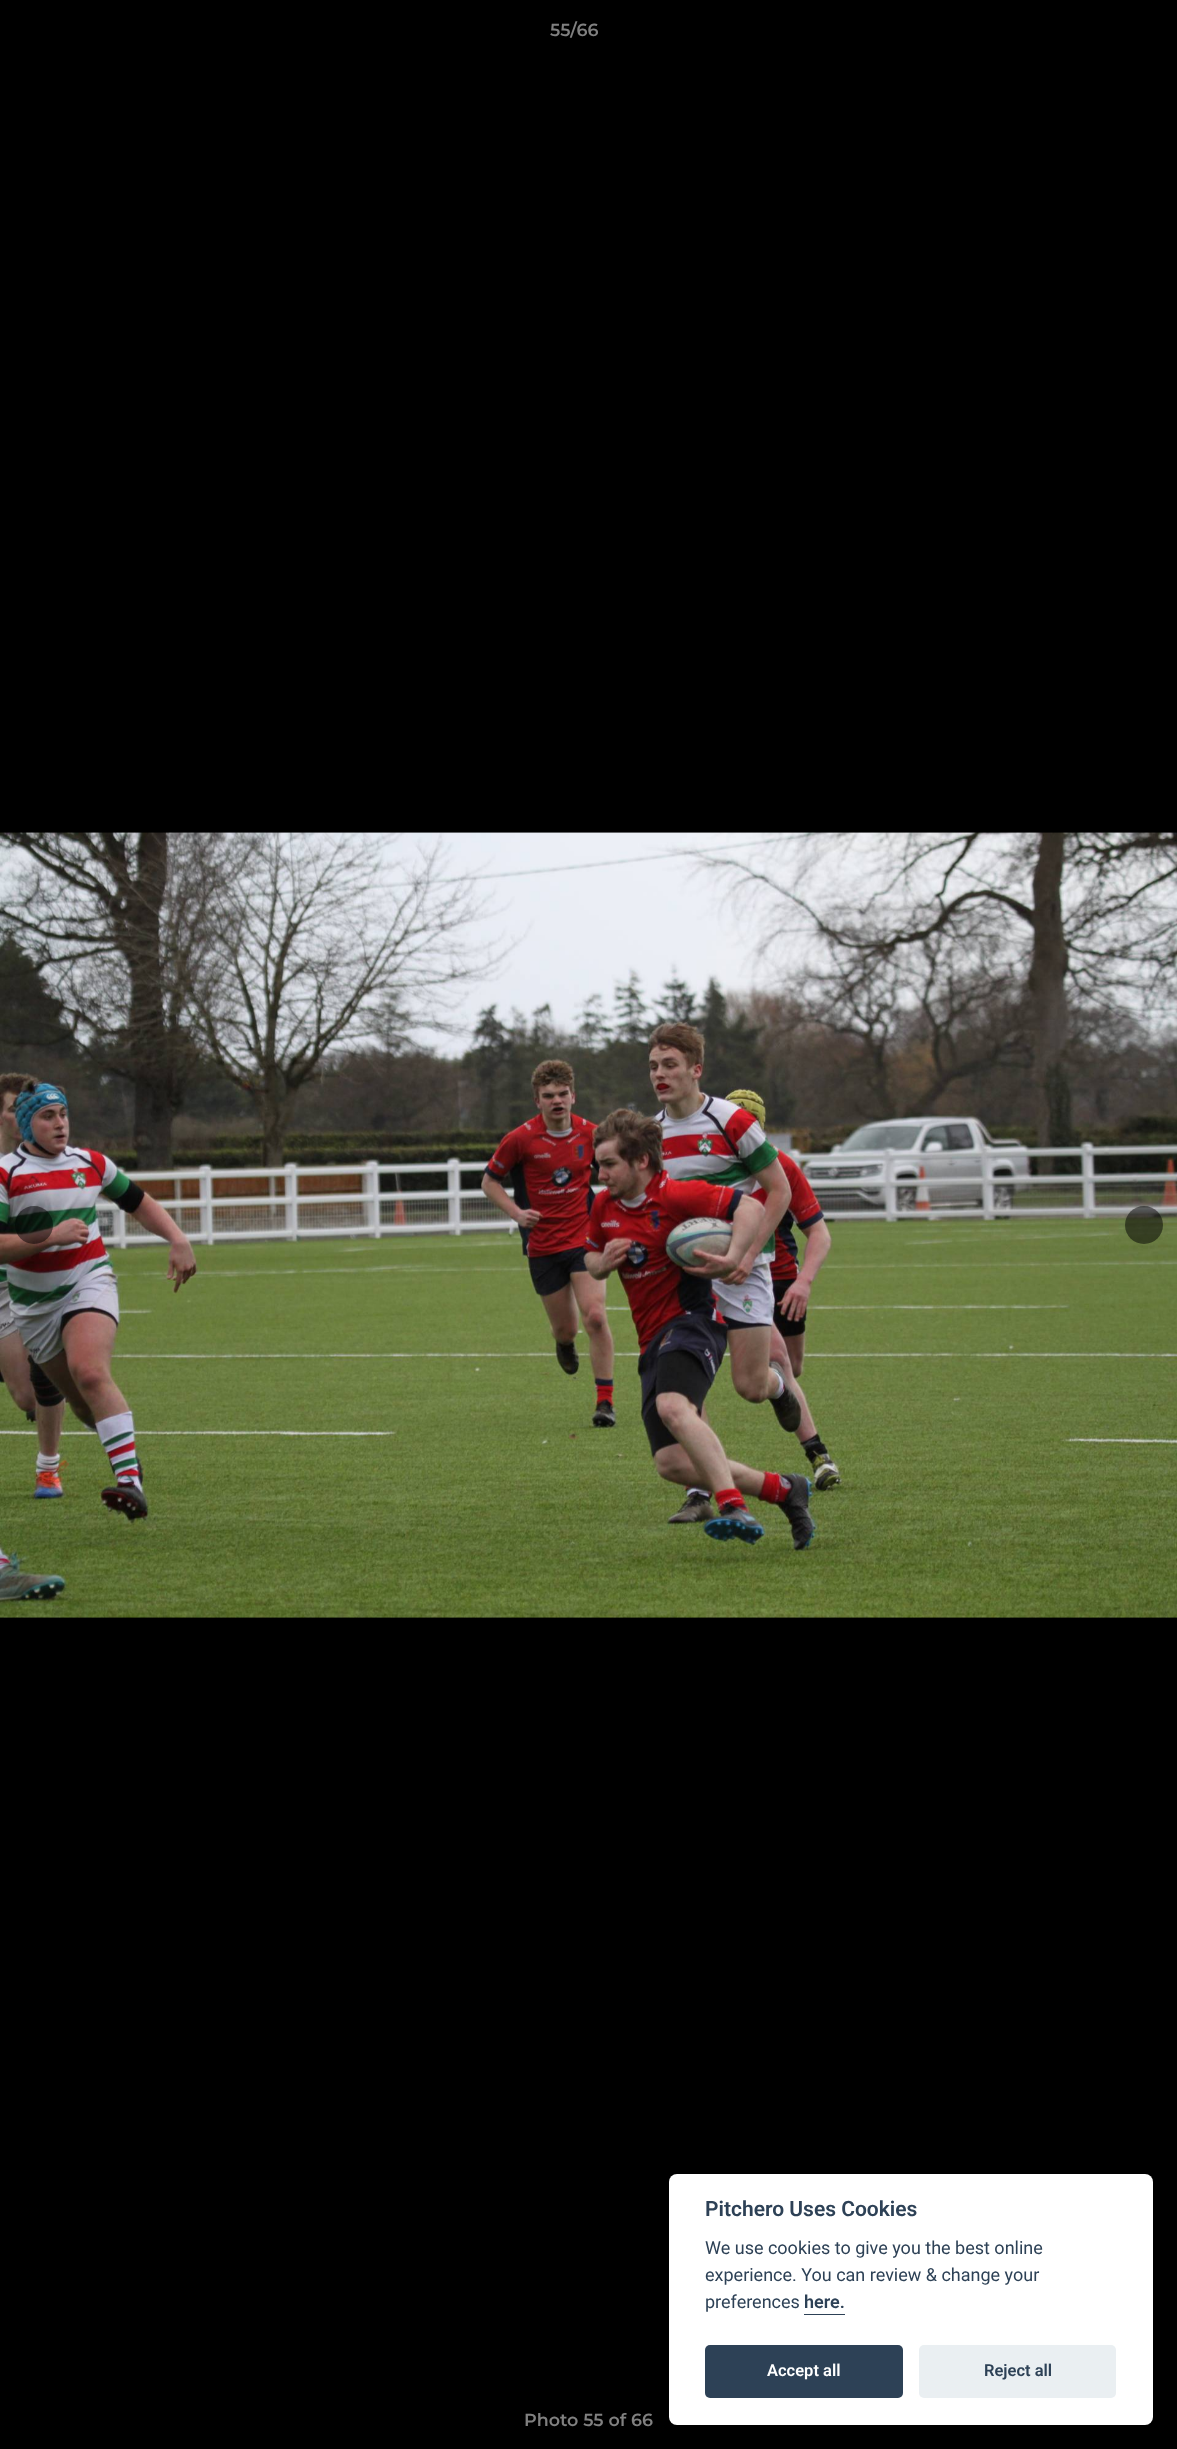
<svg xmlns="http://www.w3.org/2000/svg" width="1177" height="2449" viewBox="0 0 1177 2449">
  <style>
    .t1 { font: 600 17.5px Montserrat; fill: #808080; }
    .t2 { font: 600 21px Roboto; fill: #2d4156; }
    .t3 { font: 18px Roboto; fill: #2d4156; }
    .t4 { font: 600 18px Roboto; fill: #2d4156; }
    .t5 { font: 600 16.5px Roboto; fill: #fff; }
    .t6 { font: 600 16.5px Roboto; fill: #2d4156; }
  </style>
  <rect width="100%" height="100%" fill="#000"/>
  <text x="550" y="36" class="t1">55/66</text>
  <image x="0" y="832" width="1177" height="786" href="images/1.png"/>
  <circle cx="34" cy="1225" r="19" fill="#00000080"/>
  <circle cx="1144" cy="1225" r="19" fill="#00000080"/>
  <text x="524" y="2426" class="t1">Photo 55 of 66</text>
  <rect x="669" y="2174" width="484" height="251" rx="8" fill="#fff"/>
  <text x="705" y="2216" class="t2">Pitchero Uses Cookies</text>
  <text x="705" y="2254" class="t3">We use cookies to give you the best online</text>
  <text x="705" y="2281" class="t3">experience. You can review &amp; change your</text>
  <text x="705" y="2308" class="t3">preferences</text>
  <text x="804" y="2308" class="t4">here.</text>
  <rect x="804" y="2314" width="41" height="1" fill="#2d4156"/>
  <rect x="705" y="2345" width="198" height="53" rx="5" fill="#2d4156"/>
  <text x="767" y="2376" class="t5">Accept all</text>
  <rect x="919" y="2345" width="197" height="53" rx="5" fill="#eaeff2"/>
  <text x="984" y="2376" class="t6">Reject all</text>
</svg>
